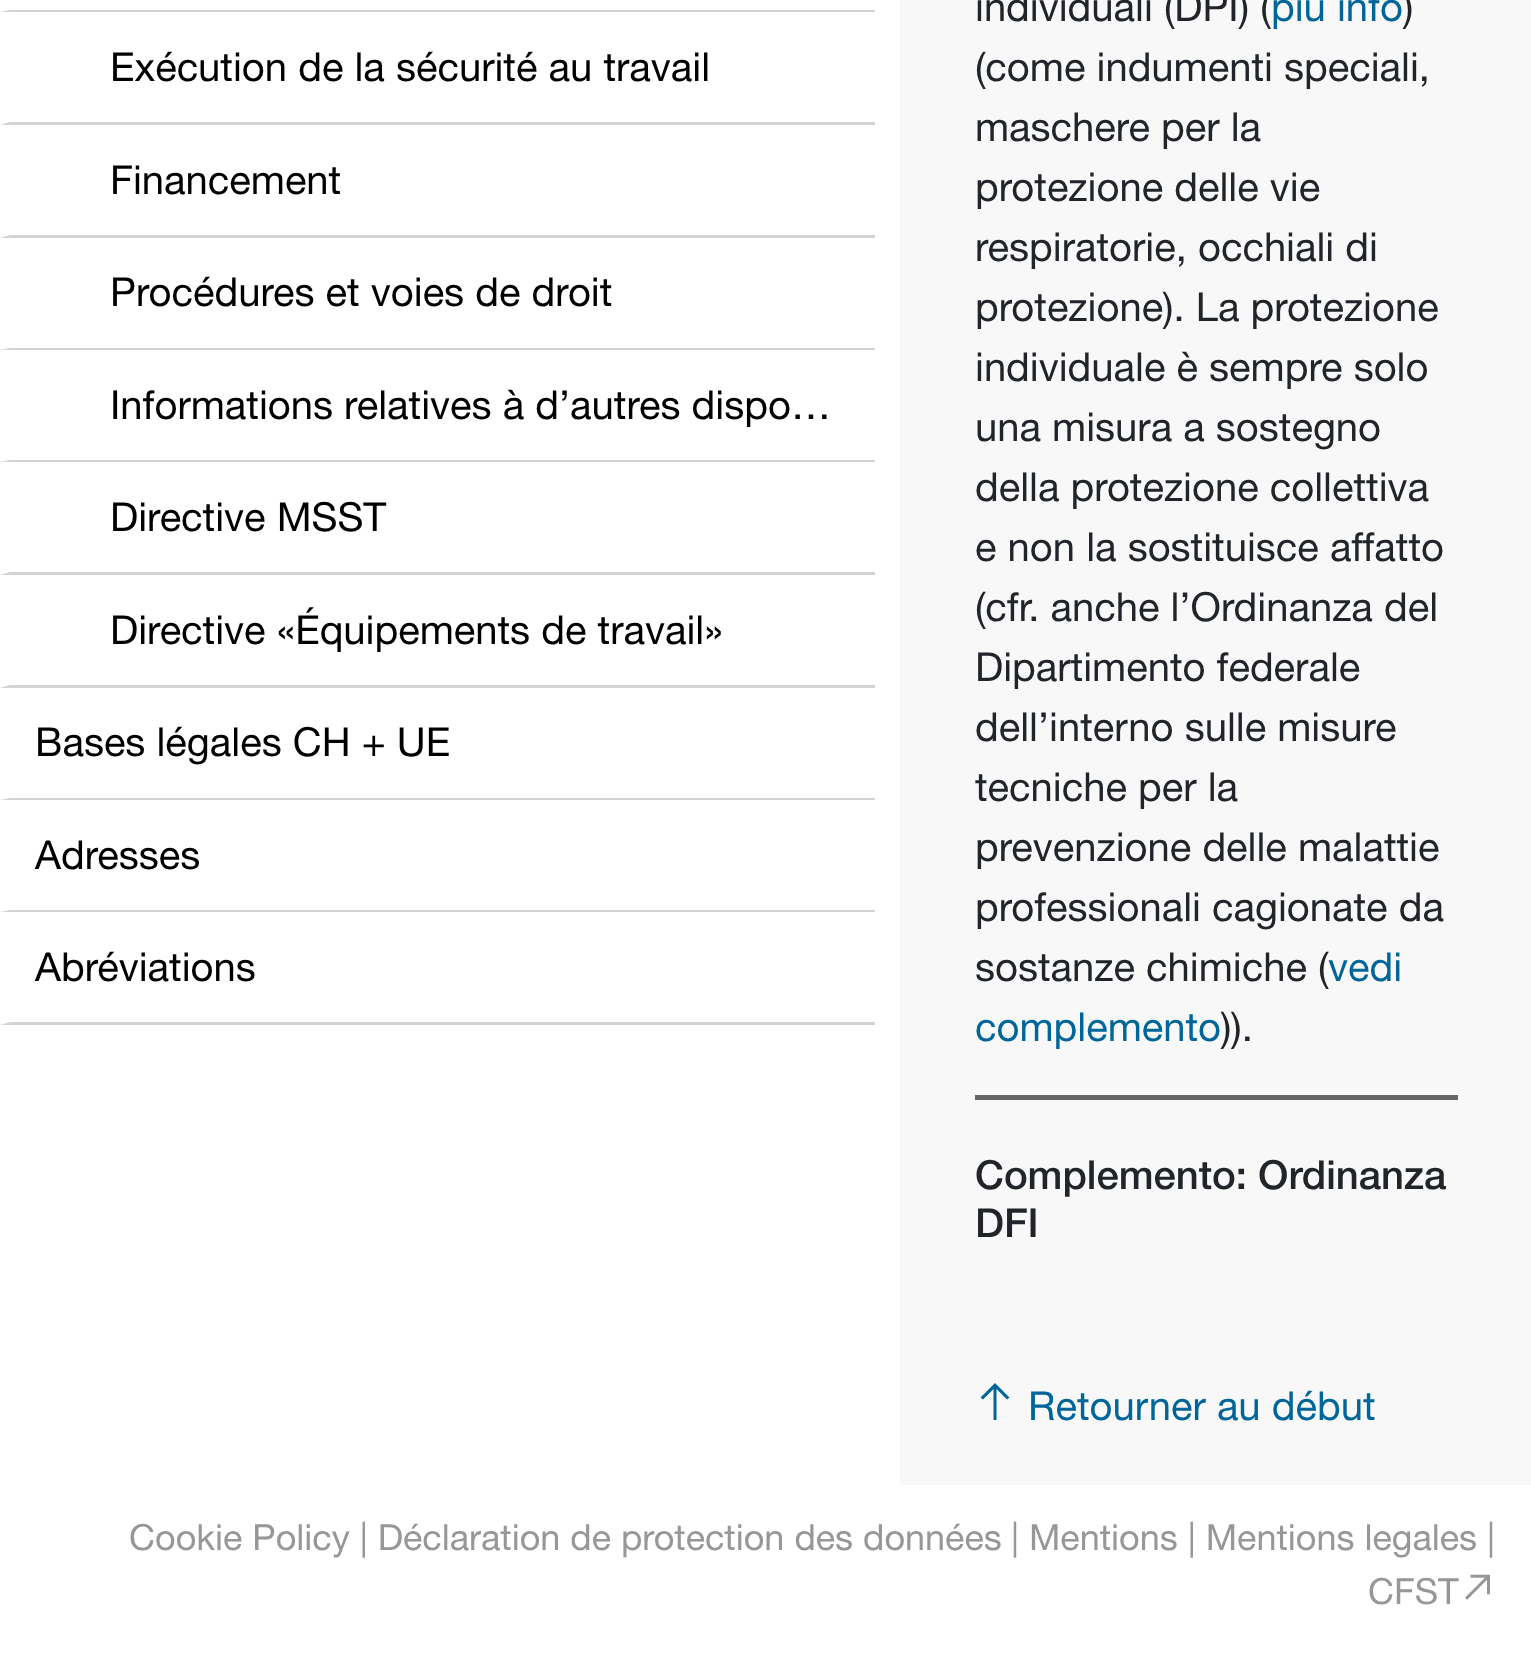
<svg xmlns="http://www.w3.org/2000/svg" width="1531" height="1666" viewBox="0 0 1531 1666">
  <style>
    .t1 { font: 40px 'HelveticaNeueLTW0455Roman'; fill: #000; }
    .t2 { font: 40px 'HelveticaNeueLTW0455Roman'; fill: #212529; }
    .t3 { font: 40px 'HelveticaNeueLTW0455Roman'; fill: #069; }
    .t4 { font: 500 40px 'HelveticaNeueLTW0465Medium'; fill: #212529; }
    .t5 { font: 36px 'HelveticaNeueLTW0455Roman'; fill: #979797; }
  </style>
  <rect width="100%" height="100%" fill="#fff"/>
  <path d="M875 12H0L10 10H875Z" fill="#d3d3d3"/>
  <path d="M875 125H0L10 122H875Z" fill="#d3d3d3"/>
  <text x="110" y="81" class="t1">Exécution de la sécurité au travail</text>
  <path d="M875 238H0L10 235H875Z" fill="#d3d3d3"/>
  <text x="110" y="194" class="t1">Financement</text>
  <path d="M875 350H0L10 348H875Z" fill="#d3d3d3"/>
  <text x="110" y="306" class="t1">Procédures et voies de droit</text>
  <path d="M875 462H0L10 460H875Z" fill="#d3d3d3"/>
  <text x="110" y="419" class="t1">Informations relatives à d’autres dispo…</text>
  <path d="M875 575H0L10 572H875Z" fill="#d3d3d3"/>
  <text x="110" y="531" class="t1">Directive MSST</text>
  <path d="M875 688H0L10 685H875Z" fill="#d3d3d3"/>
  <text x="110" y="644" class="t1">Directive «Équipements de travail»</text>
  <path d="M875 800H0L10 798H875Z" fill="#d3d3d3"/>
  <text x="35" y="756" class="t1">Bases légales CH + UE</text>
  <path d="M875 912H0L10 910H875Z" fill="#d3d3d3"/>
  <text x="35" y="869" class="t1">Adresses</text>
  <path d="M875 1025H0L10 1022H875Z" fill="#d3d3d3"/>
  <text x="35" y="981" class="t1">Abréviations</text>
  <rect x="900" y="0" width="631" height="1485" fill="#f8f8f8"/>
  <text x="975" y="21" class="t2">individuali (DPI) (</text>
  <text x="1271" y="21" class="t3">più info</text>
  <text x="1403" y="21" class="t2">)</text>
  <text x="975" y="81" class="t2">(come indumenti speciali,</text>
  <text x="975" y="141" class="t2">maschere per la</text>
  <text x="975" y="201" class="t2">protezione delle vie</text>
  <text x="975" y="261" class="t2">respiratorie, occhiali di</text>
  <text x="975" y="321" class="t2">protezione). La protezione</text>
  <text x="975" y="381" class="t2">individuale è sempre solo</text>
  <text x="975" y="441" class="t2">una misura a sostegno</text>
  <text x="975" y="501" class="t2">della protezione collettiva</text>
  <text x="975" y="561" class="t2">e non la sostituisce affatto</text>
  <text x="975" y="621" class="t2">(cfr. anche l’Ordinanza del</text>
  <text x="975" y="681" class="t2">Dipartimento federale</text>
  <text x="975" y="741" class="t2">dell’interno sulle misure</text>
  <text x="975" y="801" class="t2">tecniche per la</text>
  <text x="975" y="861" class="t2">prevenzione delle malattie</text>
  <text x="975" y="921" class="t2">professionali cagionate da</text>
  <text x="975" y="981" class="t2">sostanze chimiche (</text>
  <text x="1328" y="981" class="t3">vedi</text>
  <text x="975" y="1041" class="t3">complemento</text>
  <text x="1221" y="1041" class="t2">)).</text>
  <rect x="975" y="1095" width="483" height="5" fill="#666"/>
  <text x="975" y="1189" class="t4">Complemento: Ordinanza</text>
  <text x="975" y="1237" class="t4">DFI</text>
  <path d="M980.5 1397.5L983 1399.5L993.5 1389V1420H996.5V1389L1007 1399.5L1009.5 1397.5L995 1383Z" fill="#069"/>
  <text x="1028" y="1420" class="t3">Retourner au début</text>
  <text x="129" y="1550" class="t5">Cookie Policy | Déclaration de protection des données</text>
  <text x="1011" y="1550" class="t5">| Mentions | Mentions legales |</text>
  <text x="1368" y="1604" class="t5">CFST</text>
  <image x="1465" y="1574" width="25" height="26" href="images/1.png"/>
</svg>
